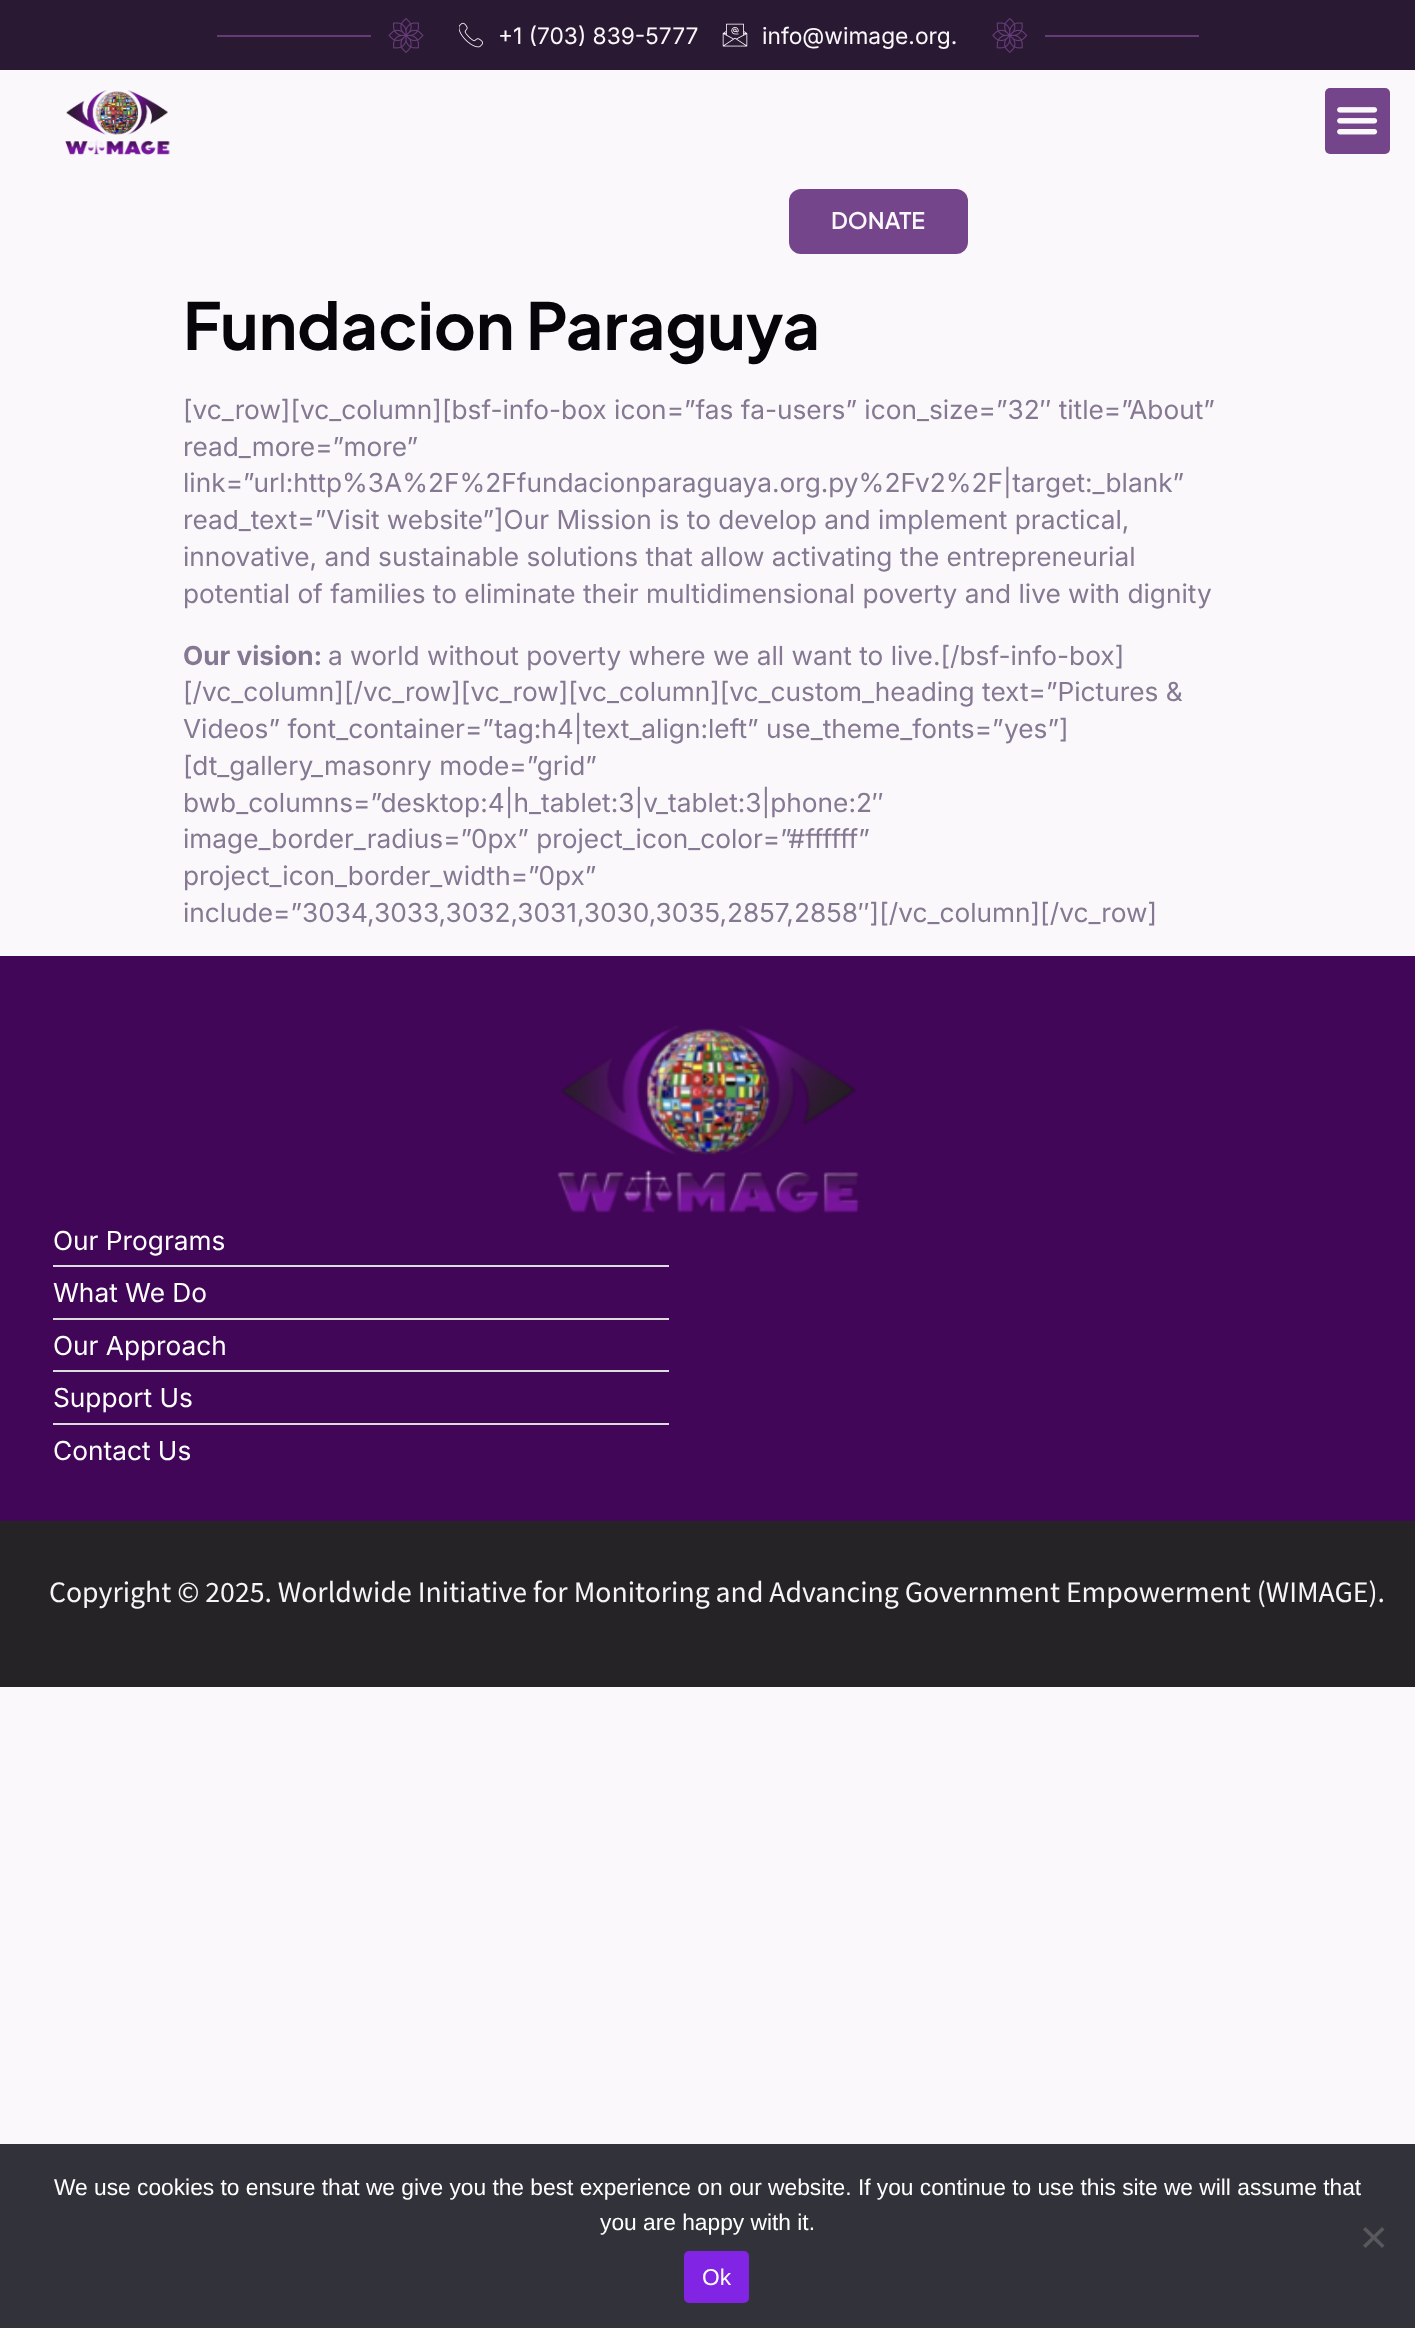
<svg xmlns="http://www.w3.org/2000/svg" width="1415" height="2328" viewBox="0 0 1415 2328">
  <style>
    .t1 { font: 22.75px Inter; fill: #fbf8fc; }
    .t2 { font: 600 22.75px Plus Jakarta Sans; fill: #fbf8fc; }
    .t3 { font: bold 64.75px Plus Jakarta Sans; fill: #08050a; }
    .t4 { font: 26.25px Inter; fill: #857892; }
    .t5 { font: bold 26.25px Inter; fill: #857892; }
    .t6 { font: 26.25px Inter; fill: #fff; }
    .t7 { font: 29.75px Source Sans Pro; fill: #f6f6f6; }
    .t8 { font: 22.75px Liberation Sans; fill: #fff; }
  </style>
  <rect width="100%" height="100%" fill="#fbf8fc"/>
  <rect x="0" y="0" width="1415" height="70" fill="#2a1932"/>
  <rect x="217" y="35" width="154" height="2" fill="#653b78"/>
  <image x="388" y="18" width="36" height="35" href="images/1.png"/>
  <image x="459" y="22" width="24" height="26" href="images/2.png"/>
  <text x="498" y="44" class="t1">+1 (703) 839-5777</text>
  <image x="722" y="23" width="26" height="24" href="images/3.png"/>
  <text x="762" y="44" class="t1">info@wimage.org.</text>
  <image x="992" y="18" width="36" height="35" href="images/4.png"/>
  <rect x="1045" y="35" width="154" height="2" fill="#653b78"/>
  <image x="65" y="90" width="105" height="65" href="images/5.png"/>
  <rect x="1325" y="88" width="65" height="66" rx="5" fill="#75458b"/>
  <image x="1337" y="107" width="41" height="28" href="images/6.png"/>
  <rect x="789" y="189" width="179" height="65" rx="12" fill="#75458b"/>
  <text x="831" y="229" class="t2">DONATE</text>
  <text x="183" y="350" class="t3">Fundacion Paraguya</text>
  <text x="183" y="419" class="t4">[vc_row][vc_column][bsf-info-box icon=”fas fa-users” icon_size=”32″ title=”About”</text>
  <text x="183" y="456" class="t4">read_more=”more”</text>
  <text x="183" y="492" class="t4">link=”url:http%3A%2F%2Ffundacionparaguaya.org.py%2Fv2%2F|target:_blank”</text>
  <text x="183" y="529" class="t4">read_text=”Visit website”]Our Mission is to develop and implement practical,</text>
  <text x="183" y="566" class="t4">innovative, and sustainable solutions that allow activating the entrepreneurial</text>
  <text x="183" y="603" class="t4">potential of families to eliminate their multidimensional poverty and live with dignity</text>
  <text x="183" y="665" class="t5">Our vision:</text>
  <text x="328" y="665" class="t4">a world without poverty where we all want to live.[/bsf-info-box]</text>
  <text x="183" y="701" class="t4">[/vc_column][/vc_row][vc_row][vc_column][vc_custom_heading text=”Pictures &amp;</text>
  <text x="183" y="738" class="t4">Videos” font_container=”tag:h4|text_align:left” use_theme_fonts=”yes”]</text>
  <text x="183" y="775" class="t4">[dt_gallery_masonry mode=”grid”</text>
  <text x="183" y="812" class="t4">bwb_columns=”desktop:4|h_tablet:3|v_tablet:3|phone:2″</text>
  <text x="183" y="848" class="t4">image_border_radius=”0px” project_icon_color=”#ffffff”</text>
  <text x="183" y="885" class="t4">project_icon_border_width=”0px”</text>
  <text x="183" y="922" class="t4">include=”3034,3033,3032,3031,3030,3035,2857,2858″][/vc_column][/vc_row]</text>
  <rect x="0" y="956" width="1415" height="565" fill="#420658"/>
  <image x="557" y="1025" width="303" height="189" href="images/7.png"/>
  <text x="53" y="1250" class="t6">Our Programs</text>
  <rect x="53" y="1265" width="616" height="2" fill="#ddd"/>
  <text x="53" y="1302" class="t6">What We Do</text>
  <rect x="53" y="1318" width="616" height="2" fill="#ddd"/>
  <text x="53" y="1355" class="t6">Our Approach</text>
  <rect x="53" y="1370" width="616" height="2" fill="#ddd"/>
  <text x="53" y="1407" class="t6">Support Us</text>
  <rect x="53" y="1423" width="616" height="2" fill="#ddd"/>
  <text x="53" y="1460" class="t6">Contact Us</text>
  <rect x="0" y="1521" width="1415" height="166" fill="#252325"/>
  <text x="49" y="1602" class="t7">Copyright © 2025. Worldwide Initiative for Monitoring and Advancing Government Empowerment (WIMAGE).</text>
  <rect x="0" y="2144" width="1415" height="184" fill="#32323a"/>
  <text x="54" y="2195" class="t8">We use cookies to ensure that we give you the best experience on our website. If you continue to use this site we will assume that</text>
  <text x="600" y="2230" class="t8">you are happy with it.</text>
  <path d="M1382 2227L1384.5 2229.5L1365.5 2248L1363 2245.5Z" fill="#59595d"/>
  <path d="M1363 2229.5L1365.5 2227L1384.5 2245.5L1382 2248Z" fill="#59595d"/>
  <rect x="684" y="2251" width="65" height="52" rx="5" fill="#8224e3"/>
  <text x="702" y="2285" class="t8">Ok</text>
</svg>
